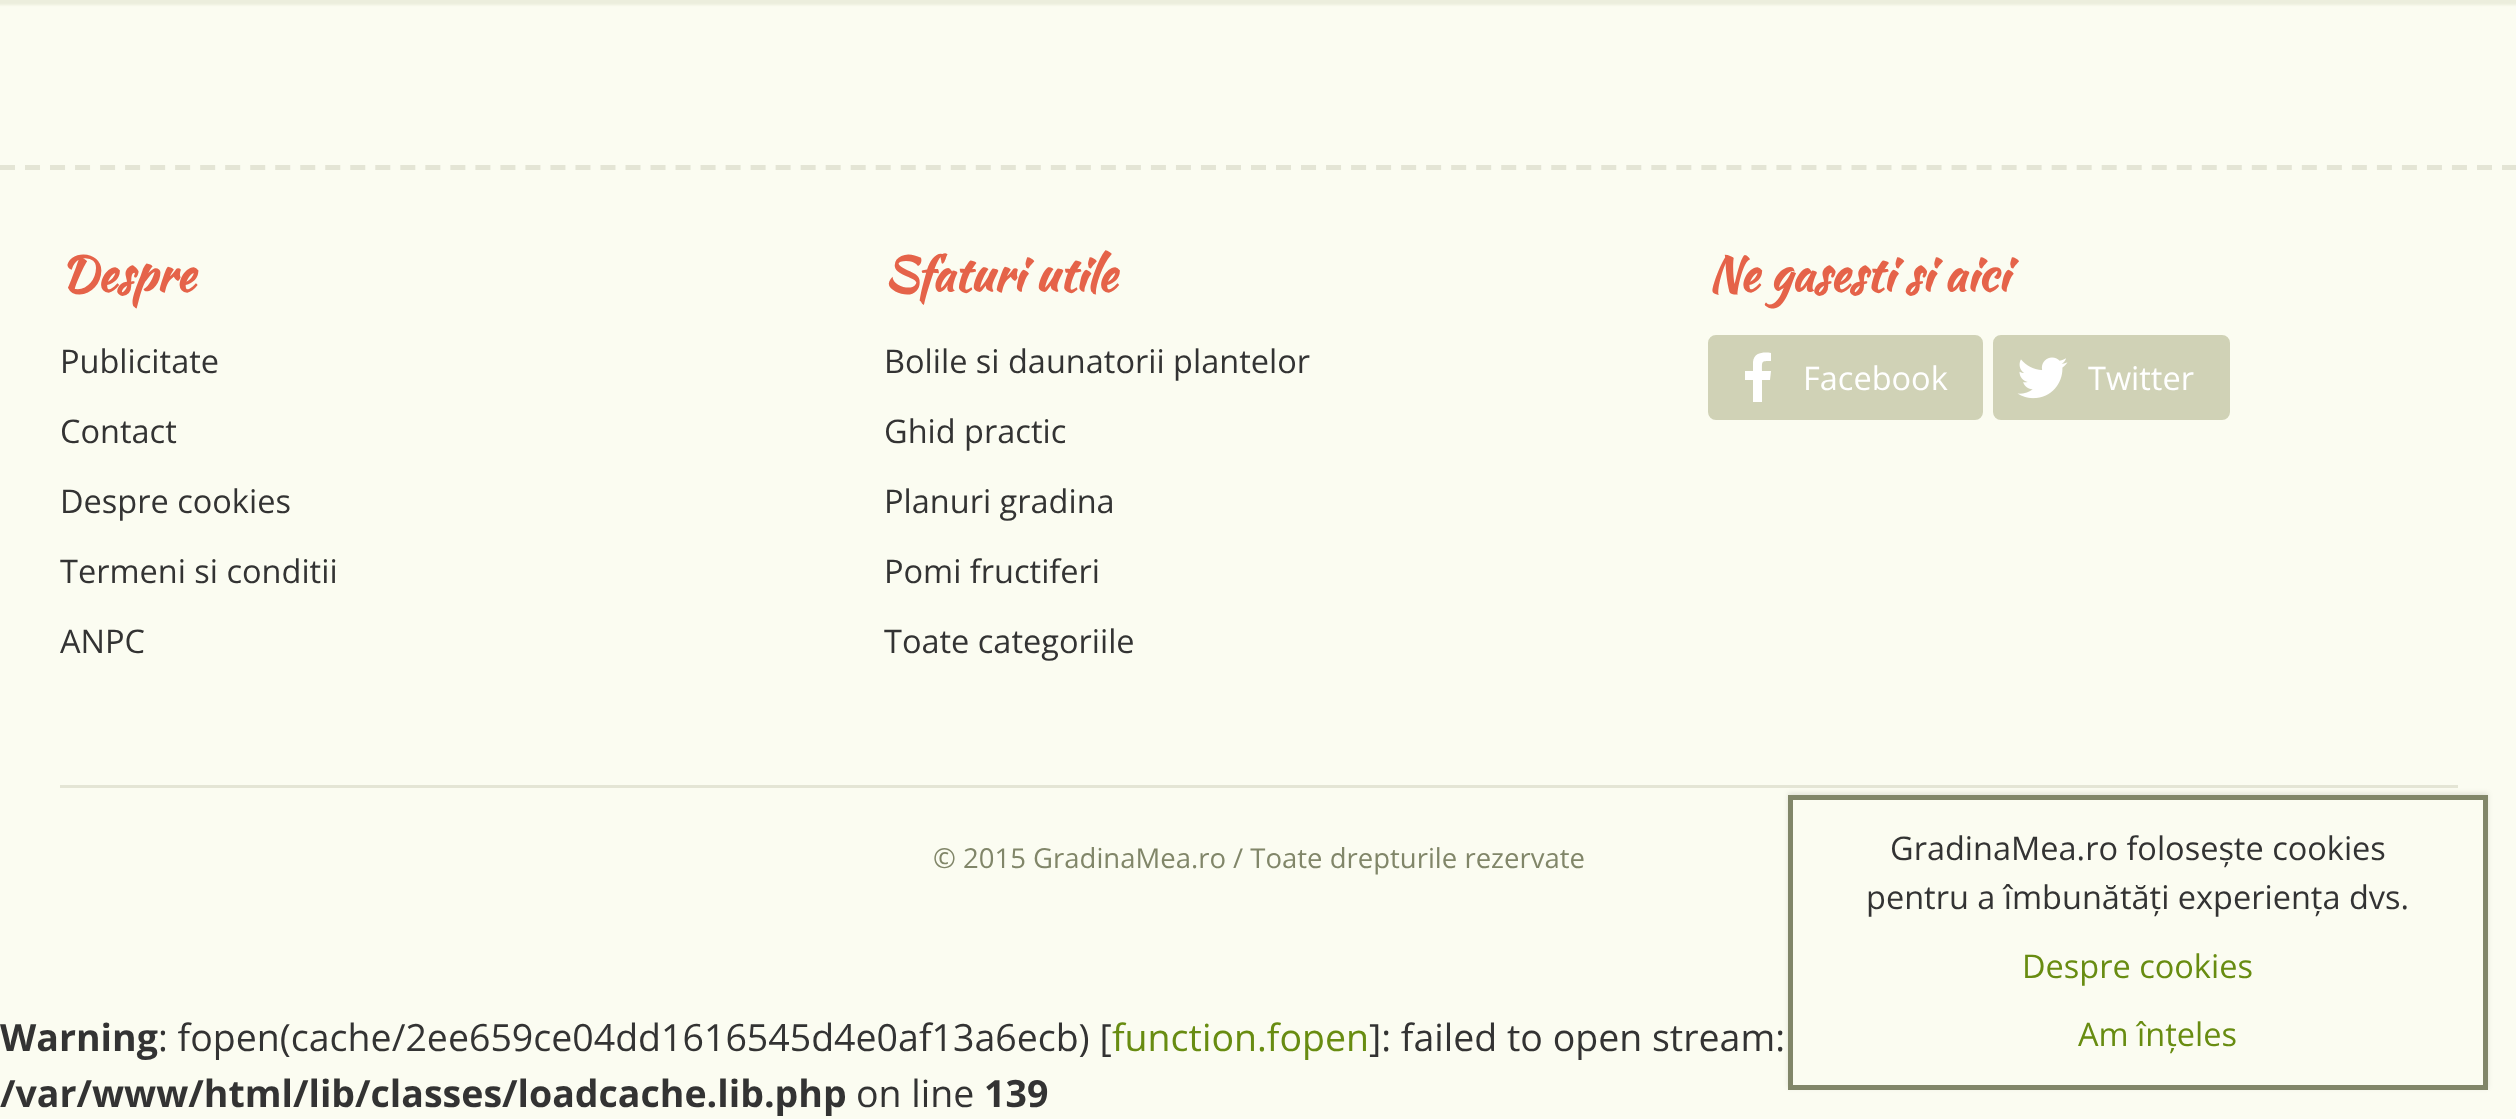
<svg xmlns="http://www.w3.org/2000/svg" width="2516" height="1119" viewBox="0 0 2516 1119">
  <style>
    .t1 { font: bold 47.5px Kaushan Script; fill: #e56349; }
    .t2 { font: 32.5px Open Sans; fill: #333; }
    .t3 { font: 32.5px Open Sans; fill: #fff; }
    .t4 { font: 27.5px Open Sans; fill: #818669; }
    .t5 { font: bold 37.5px Open Sans; fill: #333; }
    .t6 { font: 37.5px Open Sans; fill: #333; }
    .t7 { font: 37.5px Open Sans; fill: #688c11; }
    .t8 { font: 32.5px Open Sans; fill: #688c11; }
  </style>
  <rect width="100%" height="100%" fill="#fbfcf1"/>
  <rect x="-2" y="-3" width="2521" height="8" fill="#b2b89233" filter="blur(1px)"/>
  <path d="M0 167.5H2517.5" fill="none" stroke="#e4e5d5" stroke-width="5" stroke-dasharray="15 10.02"/>
  <text x="60" y="291" class="t1">Despre</text>
  <text x="60" y="373" class="t2">Publicitate</text>
  <text x="60" y="443" class="t2">Contact</text>
  <text x="60" y="513" class="t2">Despre cookies</text>
  <text x="60" y="583" class="t2">Termeni si conditii</text>
  <text x="60" y="653" class="t2">ANPC</text>
  <text x="884" y="291" class="t1">Sfaturi utile</text>
  <text x="884" y="373" class="t2">Bolile si daunatorii plantelor</text>
  <text x="884" y="443" class="t2">Ghid practic</text>
  <text x="884" y="513" class="t2">Planuri gradina</text>
  <text x="884" y="583" class="t2">Pomi fructiferi</text>
  <text x="884" y="653" class="t2">Toate categoriile</text>
  <text x="1708" y="291" class="t1">Ne gasesti si aici</text>
  <rect x="1709.5" y="336.5" width="272" height="82" rx="6.5" fill="#d0d2b6" stroke="#d0d2b6" stroke-width="3"/>
  <path d="M1770 380L1771 371H1762C1762 361 1761 361 1771 361V353C1764 352 1754 352 1753 362V371H1745V380H1753V402H1762V380Z" fill="#fff"/>
  <text x="1803" y="390" class="t3">Facebook</text>
  <rect x="1994.5" y="336.5" width="234" height="82" rx="6.5" fill="#d0d2b6" stroke="#d0d2b6" stroke-width="3"/>
  <image x="2017" y="357" width="51" height="42" href="images/1.png"/>
  <text x="2088" y="390" class="t3">Twitter</text>
  <rect x="60" y="785" width="2398" height="3" fill="#e4e5d5"/>
  <text x="933" y="868" class="t4">© 2015 GradinaMea.ro / Toate drepturile rezervate</text>
  <text x="0" y="1051" class="t5">Warning</text>
  <text x="158" y="1051" class="t6">: fopen(cache/2ee659ce04dd1616545d4e0af13a6ecb) [</text>
  <text x="1112" y="1051" class="t7">function.fopen</text>
  <text x="1369" y="1051" class="t6">]: failed to open stream:</text>
  <rect x="1788" y="793" width="700" height="295" fill="#0000001a" filter="blur(2.5px)"/>
  <rect x="1790.5" y="797.5" width="695" height="290" fill="#fbfcf1" stroke="#818669" stroke-width="5"/>
  <text x="1890" y="860" class="t2">GradinaMea.ro folosește cookies</text>
  <text x="1866" y="909" class="t2">pentru a îmbunătăți experiența dvs.</text>
  <text x="2022" y="978" class="t8">Despre cookies</text>
  <text x="2078" y="1046" class="t8">Am înțeles</text>
  <text x="0" y="1107" class="t5">/var/www/html/lib/classes/loadcache.lib.php</text>
  <text x="856" y="1107" class="t6">on line</text>
  <text x="984" y="1107" class="t5">139</text>
</svg>
